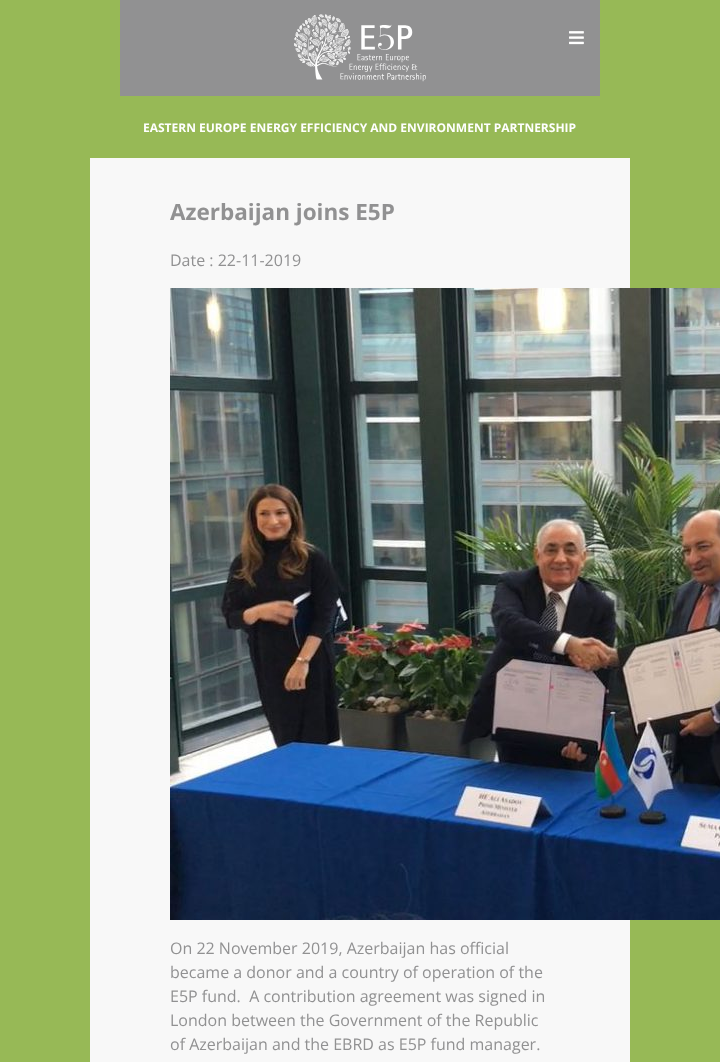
<svg xmlns="http://www.w3.org/2000/svg" width="720" height="1062" viewBox="0 0 720 1062">
  <style>
    .t1 { font: bold 12px Open Sans; fill: #fff; }
    .t2 { font: bold 22.5px Open Sans; fill: #919192; }
    .t3 { font: 16px Open Sans; fill: #919192; }
  </style>
  <rect width="100%" height="100%" fill="#97b956"/>
  <rect x="120" y="0" width="480" height="96" fill="#919192"/>
  <image x="294" y="14" width="132" height="68" href="images/1.png"/>
  <image x="569" y="31" width="15" height="14" href="images/2.png"/>
  <text x="143" y="132" class="t1">EASTERN EUROPE ENERGY EFFICIENCY AND ENVIRONMENT PARTNERSHIP</text>
  <rect x="90" y="158" width="540" height="904" fill="#f8f8f8"/>
  <text x="170" y="220" class="t2">Azerbaijan joins E5P</text>
  <text x="170" y="266" class="t3">Date : 22-11-2019</text>
  <image x="170" y="288" width="550" height="632" href="images/3.png"/>
  <text x="170" y="954" class="t3">On 22 November 2019, Azerbaijan has official</text>
  <text x="170" y="978" class="t3">became a donor and a country of operation of the</text>
  <text x="170" y="1002" class="t3" xml:space="preserve">E5P fund.  A contribution agreement was signed in</text>
  <text x="170" y="1026" class="t3">London between the Government of the Republic</text>
  <text x="170" y="1050" class="t3">of Azerbaijan and the EBRD as E5P fund manager.</text>
</svg>
